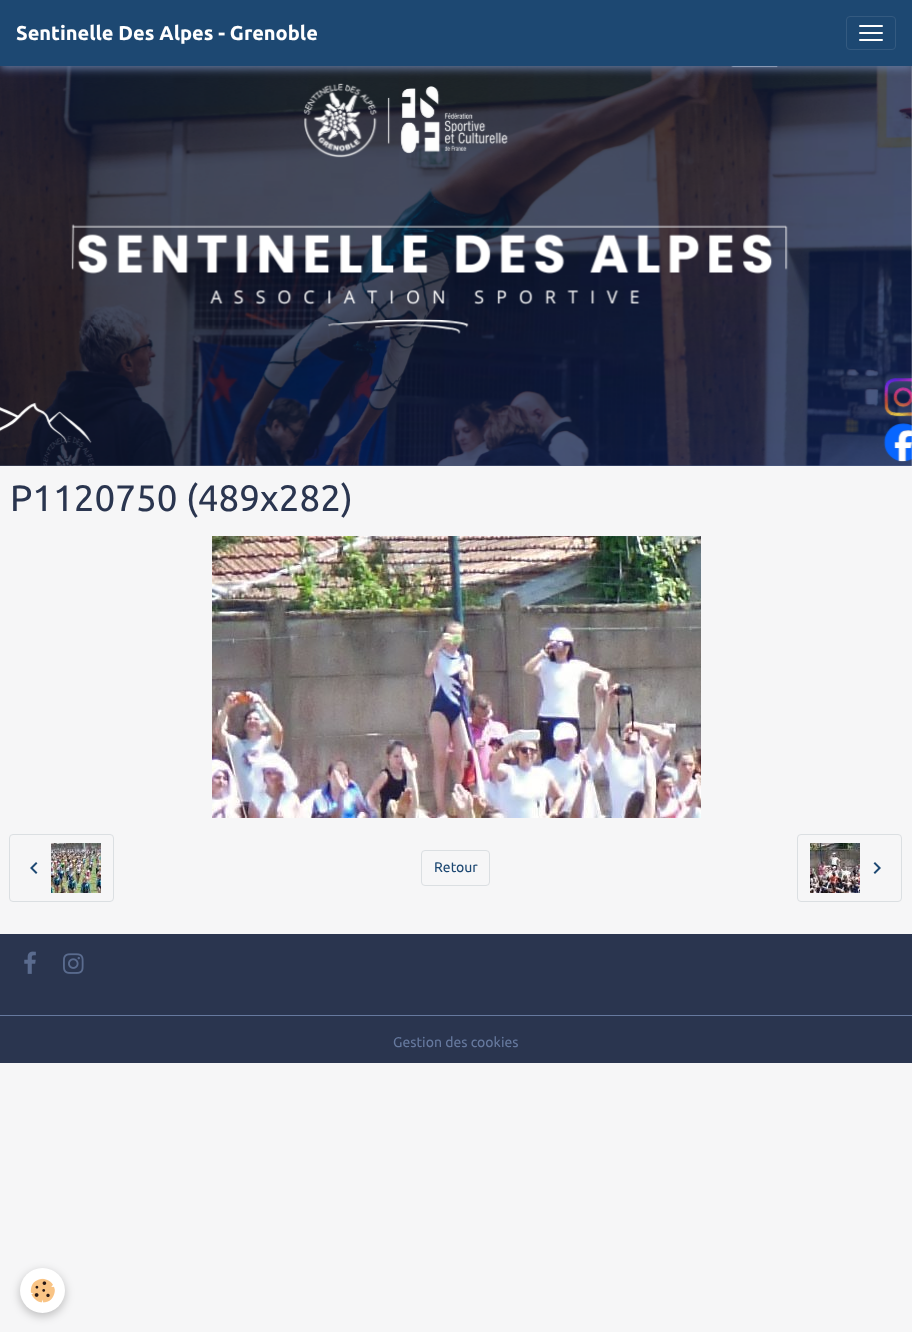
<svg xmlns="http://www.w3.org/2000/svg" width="912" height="1332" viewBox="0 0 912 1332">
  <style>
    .t1 { font: bold 20px Ubuntu; fill: #fff; }
    .t2 { font: 36.75px Ubuntu; fill: #2a354f; }
    .t3 { font: 14px Ubuntu; fill: #1d4872; }
    .t4 { font: 14px Ubuntu; fill: #66799e; }
  </style>
  <rect width="100%" height="100%" fill="#f6f6f7"/>
  <image x="0" y="66" width="912" height="400" href="images/1.png"/>
  <rect x="0" y="3" width="912" height="66" fill="#62759b" filter="blur(4px)"/>
  <rect x="0" y="0" width="912" height="66" fill="#1d4872"/>
  <text x="16" y="40" class="t1">Sentinelle Des Alpes - Grenoble</text>
  <rect x="846.5" y="16.5" width="49" height="33" rx="3.5" fill="none" stroke="#345a80"/>
  <rect x="859" y="25" width="24" height="2" rx="1" fill="#fff"/>
  <rect x="859" y="32" width="24" height="2" rx="1" fill="#fff"/>
  <rect x="859" y="39" width="24" height="2" rx="1" fill="#fff"/>
  <text x="10" y="511" class="t2">P1120750 (489x282)</text>
  <image x="212" y="536" width="489" height="282" href="images/2.png"/>
  <rect x="9.5" y="834.5" width="104" height="67" rx="3.5" fill="none" stroke="#dbdfe2"/>
  <image x="30" y="862" width="8" height="12" href="images/3.png"/>
  <image x="51" y="843" width="50" height="50" href="images/4.png"/>
  <rect x="421.5" y="850.5" width="68" height="35" rx="3.5" fill="none" stroke="#dbdfe2"/>
  <text x="434" y="872" class="t3">Retour</text>
  <rect x="797.5" y="834.5" width="104" height="67" rx="3.5" fill="none" stroke="#dbdfe2"/>
  <image x="810" y="843" width="50" height="50" href="images/5.png"/>
  <image x="873" y="862" width="8" height="12" href="images/6.png"/>
  <rect x="0" y="934" width="912" height="129" fill="#2a354f"/>
  <image x="24" y="951" width="12" height="23" href="images/7.png"/>
  <image x="63" y="953" width="21" height="21" href="images/8.png"/>
  <rect x="0" y="1015" width="912" height="1" fill="#66799e"/>
  <text x="393" y="1047" class="t4">Gestion des cookies</text>
  <rect x="20" y="1271" width="45" height="45" rx="22.5" fill="#0000003d" filter="blur(5px)"/>
  <circle cx="42.5" cy="1290.5" r="22.5" fill="#fff"/>
  <image x="30" y="1278" width="25" height="25" href="images/9.png"/>
</svg>
